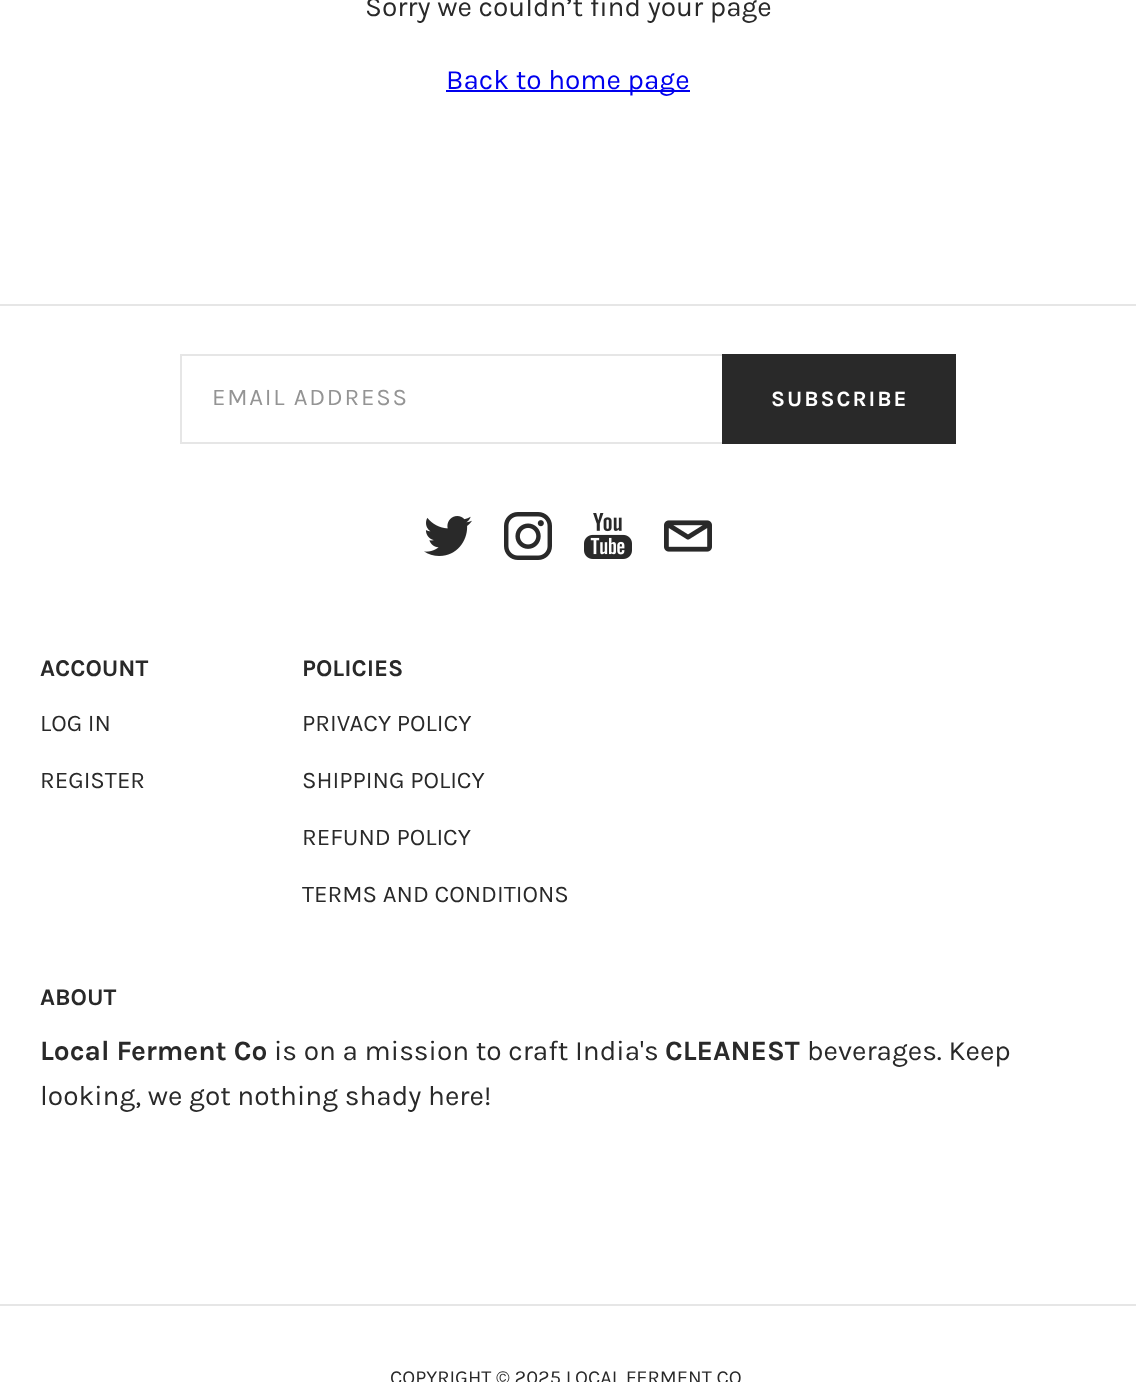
<svg xmlns="http://www.w3.org/2000/svg" width="1136" height="1382" viewBox="0 0 1136 1382">
  <style>
    .t1 { font: 28px Karla; fill: #292929; }
    .t2 { font: 28px Karla; fill: #00e; }
    .t3 { font: 24px Karla; letter-spacing: 1.75px; fill: #949494; }
    .t4 { font: bold 22px Karla; letter-spacing: 2px; fill: #fff; }
    .t5 { font: bold 24px Karla; fill: #292929; }
    .t6 { font: 24px Karla; fill: #292929; }
    .t7 { font: bold 28px Karla; fill: #292929; }
    .t8 { font: 20px Karla; fill: #292929; }
  </style>
  <rect width="100%" height="100%" fill="#fff"/>
  <text x="365" y="16" class="t1">Sorry we couldn’t find your page</text>
  <rect x="446" y="90" width="244" height="2" fill="#00e"/>
  <text x="446" y="89" class="t2">Back to home page</text>
  <rect x="0" y="304" width="1136" height="2" fill="#e6e6e6"/>
  <rect x="180" y="354" width="542" height="2" fill="#e6e6e6"/>
  <rect x="180" y="442" width="542" height="2" fill="#e6e6e6"/>
  <rect x="180" y="354" width="2" height="90" fill="#e6e6e6"/>
  <text x="212" y="405" class="t3">EMAIL ADDRESS</text>
  <rect x="722" y="354" width="234" height="90" fill="#292929"/>
  <text x="771" y="406" class="t4">SUBSCRIBE</text>
  <image x="424" y="516" width="48" height="40" href="images/1.png"/>
  <image x="504" y="512" width="48" height="48" href="images/2.png"/>
  <image x="584" y="513" width="48" height="46" href="images/3.png"/>
  <image x="664" y="520" width="48" height="32" href="images/4.png"/>
  <text x="40" y="676" class="t5">ACCOUNT</text>
  <text x="40" y="731" class="t6">LOG IN</text>
  <text x="40" y="788" class="t6">REGISTER</text>
  <text x="302" y="676" class="t5">POLICIES</text>
  <text x="302" y="731" class="t6">PRIVACY POLICY</text>
  <text x="302" y="788" class="t6">SHIPPING POLICY</text>
  <text x="302" y="845" class="t6">REFUND POLICY</text>
  <text x="302" y="902" class="t6">TERMS AND CONDITIONS</text>
  <text x="40" y="1005" class="t5">ABOUT</text>
  <text x="40" y="1060" class="t7">Local Ferment Co</text>
  <text x="274" y="1060" class="t1">is on a mission to craft India's</text>
  <text x="665" y="1060" class="t7">CLEANEST</text>
  <text x="807" y="1060" class="t1">beverages. Keep</text>
  <text x="40" y="1105" class="t1">looking, we got nothing shady here!</text>
  <rect x="0" y="1304" width="1136" height="2" fill="#e6e6e6"/>
  <text x="390" y="1384" class="t8">COPYRIGHT © 2025 LOCAL FERMENT CO</text>
</svg>
